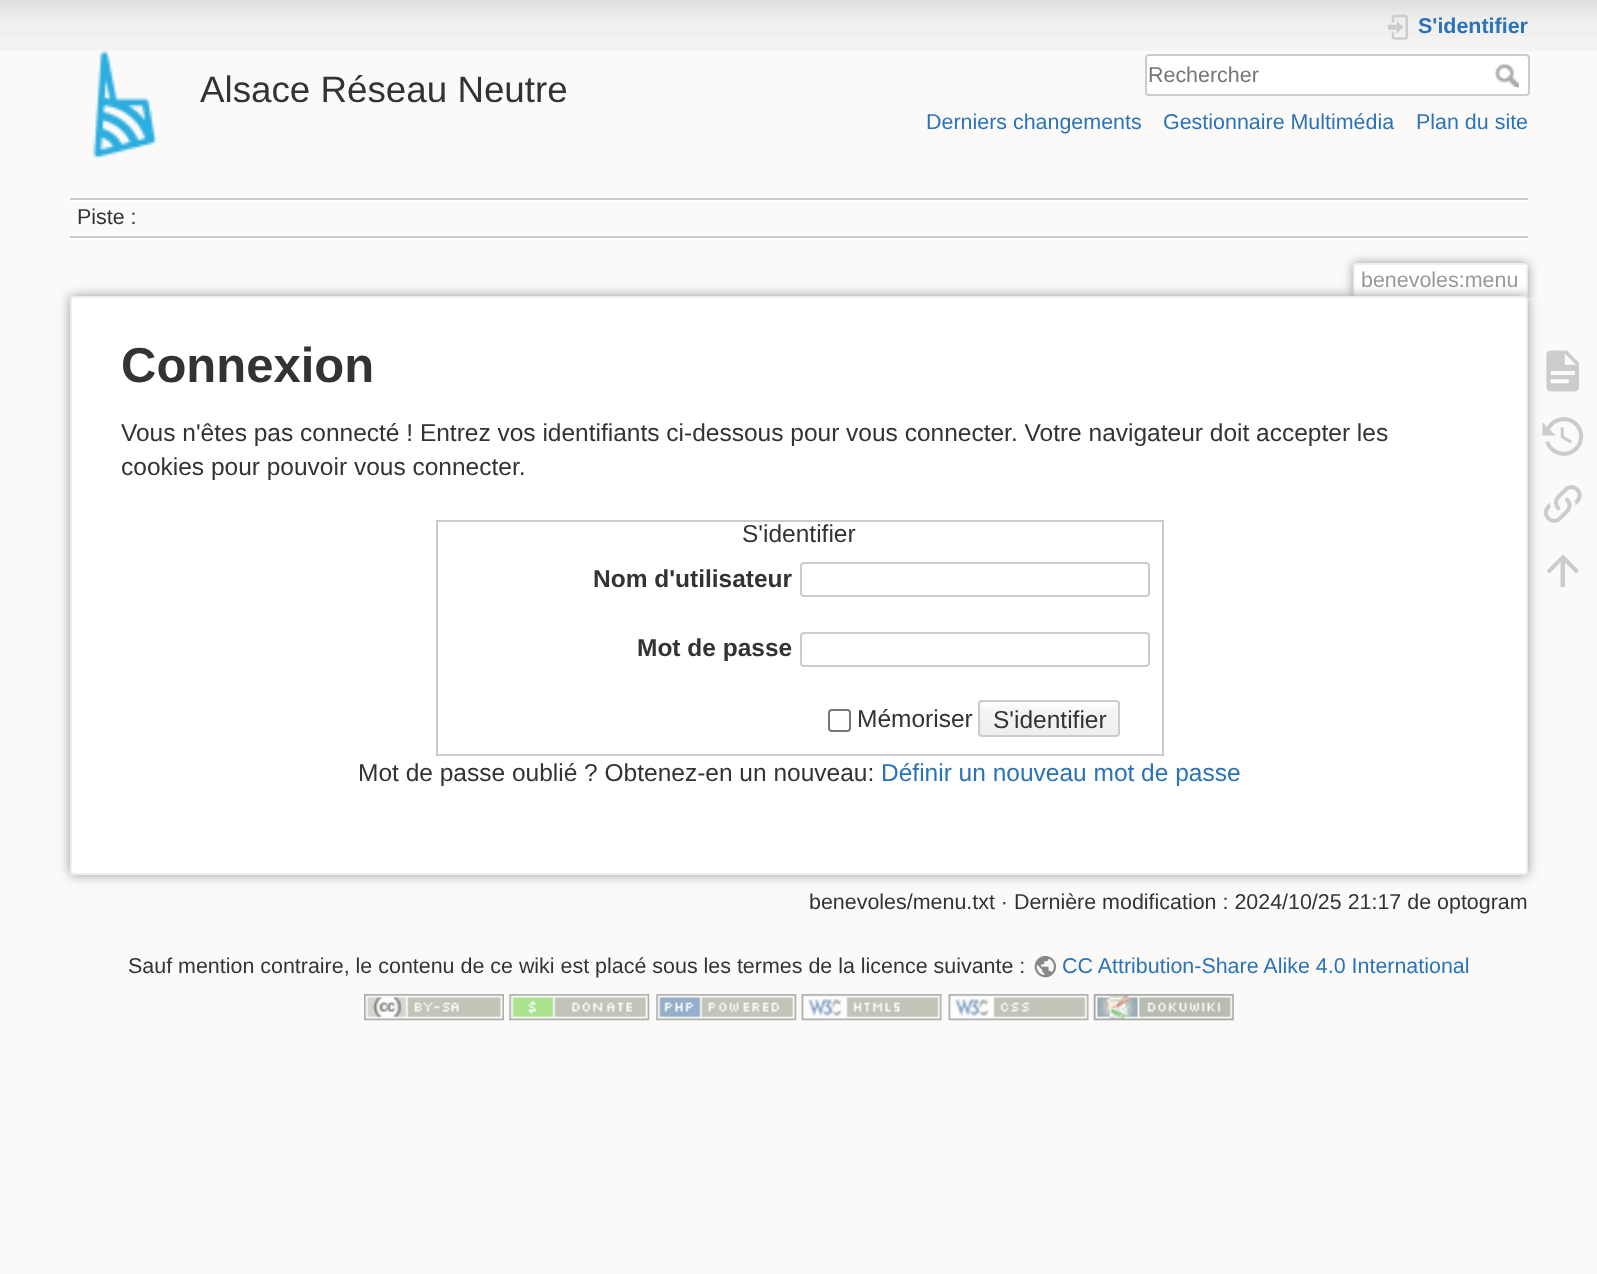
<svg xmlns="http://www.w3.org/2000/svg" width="1597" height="1274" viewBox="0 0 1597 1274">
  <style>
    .t1 { font: 36.75px Liberation Sans; fill: #333; }
    .t2 { font: bold 21.45px Liberation Sans; fill: #2b73b7; }
    .t3 { font: 21.45px Liberation Sans; fill: #757575; }
    .t4 { font: 21.45px Liberation Sans; fill: #2b73b7; }
    .t5 { font: 21.45px Liberation Sans; fill: #333; }
    .t6 { font: 21.45px Liberation Sans; fill: #999; }
    .t7 { font: bold 49px Liberation Sans; fill: #333; }
    .t8 { font: 24.5px Liberation Sans; fill: #333; }
    .t9 { font: bold 24.5px Liberation Sans; fill: #333; }
    .t10 { font: 24.5px Liberation Sans; fill: #2b73b7; }
  </style>
  <defs>
    <clipPath id="clip1"><rect x="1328" y="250" width="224" height="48"/></clipPath>
    <clipPath id="clip2"><rect x="978" y="700" width="142" height="37" rx="4"/></clipPath>
    <linearGradient id="g1" gradientUnits="userSpaceOnUse" x1="1049" y1="702" x2="1049" y2="735"><stop offset="0" stop-color="#fff"/><stop offset="0.3" stop-color="#f4f4f4"/><stop offset="0.99" stop-color="#eee"/><stop offset="0.99" stop-color="#ccc"/></linearGradient>
  </defs>
  <rect width="100%" height="100%" fill="#fbfaf9"/>
  <image x="0" y="0" width="1597" height="51" href="images/1.png"/>
  <image x="92" y="50" width="65" height="109" href="images/2.png"/>
  <text x="200" y="102" class="t1">Alsace Réseau Neutre</text>
  <image x="1388" y="14" width="20" height="26" href="images/3.png"/>
  <text x="1418" y="33" class="t2">S'identifier</text>
  <rect x="1146" y="55" width="383" height="40" rx="3" fill="#fff" stroke="#ccc" stroke-width="2"/>
  <text x="1148" y="82" class="t3">Rechercher</text>
  <image x="1494" y="63" width="25" height="25" href="images/4.png"/>
  <text x="926" y="129" class="t4">Derniers changements</text>
  <text x="1163" y="129" class="t4">Gestionnaire Multimédia</text>
  <text x="1416" y="129" class="t4">Plan du site</text>
  <rect x="70" y="198" width="1458" height="2" fill="#ccc"/>
  <rect x="70" y="238" width="1458" height="2" fill="#fff"/>
  <rect x="70" y="200" width="1458" height="2" fill="#fff"/>
  <rect x="70" y="236" width="1458" height="2" fill="#ccc"/>
  <text x="77" y="224" class="t5">Piste :</text>
  <g clip-path="url(#clip1)">
    <rect x="1353" y="263" width="175" height="35" rx="4" fill="#999" filter="blur(5.5px)"/>
  </g>
  <path d="M1357 264H1524C1525 264 1526 265 1526 266V298H1355V266C1355 265 1356 264 1357 264Z" fill="#fff"/>
  <rect x="1355" y="263" width="171" height="2" fill="#eee"/>
  <rect x="1526" y="264" width="2" height="34" fill="#eee"/>
  <rect x="1353" y="264" width="2" height="34" fill="#eee"/>
  <text x="1361" y="287" class="t6">benevoles:menu</text>
  <rect x="70" y="296" width="1458" height="579" rx="4" fill="#999" filter="blur(6px)"/>
  <rect x="71" y="297" width="1456" height="577" rx="3" fill="#fff" stroke="#eee" stroke-width="2"/>
  <text x="121" y="382" class="t7">Connexion</text>
  <text x="121" y="441" class="t8">Vous n'êtes pas connecté ! Entrez vos identifiants ci-dessous pour vous connecter. Votre navigateur doit accepter les</text>
  <text x="121" y="475" class="t8">cookies pour pouvoir vous connecter.</text>
  <rect x="437" y="521" width="726" height="234" fill="none" stroke="#ccc" stroke-width="2"/>
  <text x="742" y="542" class="t8">S'identifier</text>
  <text x="593" y="587" class="t9">Nom d'utilisateur</text>
  <rect x="801" y="563" width="348" height="33" rx="3" fill="none" stroke="#ccc" stroke-width="2"/>
  <text x="637" y="656" class="t9">Mot de passe</text>
  <rect x="801" y="633" width="348" height="33" rx="3" fill="none" stroke="#ccc" stroke-width="2"/>
  <rect x="829" y="710" width="21" height="21" rx="3" fill="none" stroke="#767676" stroke-width="2"/>
  <text x="857" y="727" class="t8">Mémoriser</text>
  <g clip-path="url(#clip2)">
    <rect x="978" y="702" width="142" height="33" fill="url(#g1)"/>
  </g>
  <rect x="979" y="701" width="140" height="35" rx="3" fill="none" stroke="#ccc" stroke-width="2"/>
  <text x="993" y="728" class="t8">S'identifier</text>
  <text x="358" y="781" class="t8">Mot de passe oublié ? Obtenez-en un nouveau:</text>
  <text x="881" y="781" class="t10">Définir un nouveau mot de passe</text>
  <text x="809" y="909" class="t5">benevoles/menu.txt · Dernière modification : 2024/10/25 21:17 de optogram</text>
  <image x="1546" y="350" width="33" height="42" href="images/5.png"/>
  <image x="1542" y="417" width="42" height="39" href="images/6.png"/>
  <image x="1543" y="485" width="39" height="38" href="images/7.png"/>
  <path d="M1565 587H1560.5V562.5L1549.5 573.5L1546.5 570.5L1563 554.5L1579 570.5L1576 573.5L1565 562.5Z" fill="#ccc"/>
  <text x="128" y="973" class="t5">Sauf mention contraire, le contenu de ce wiki est placé sous les termes de la licence suivante :</text>
  <image x="1034" y="955" width="23" height="23" href="images/8.png"/>
  <text x="1062" y="973" class="t4">CC Attribution-Share Alike 4.0 International</text>
  <image x="364" y="994" width="140" height="27" href="images/9.png"/>
  <image x="509" y="994" width="141" height="27" href="images/10.png"/>
  <image x="656" y="994" width="141" height="27" href="images/11.png"/>
  <image x="801" y="994" width="141" height="27" href="images/12.png"/>
  <image x="948" y="994" width="141" height="27" href="images/13.png"/>
  <image x="1093" y="994" width="141" height="27" href="images/14.png"/>
</svg>
